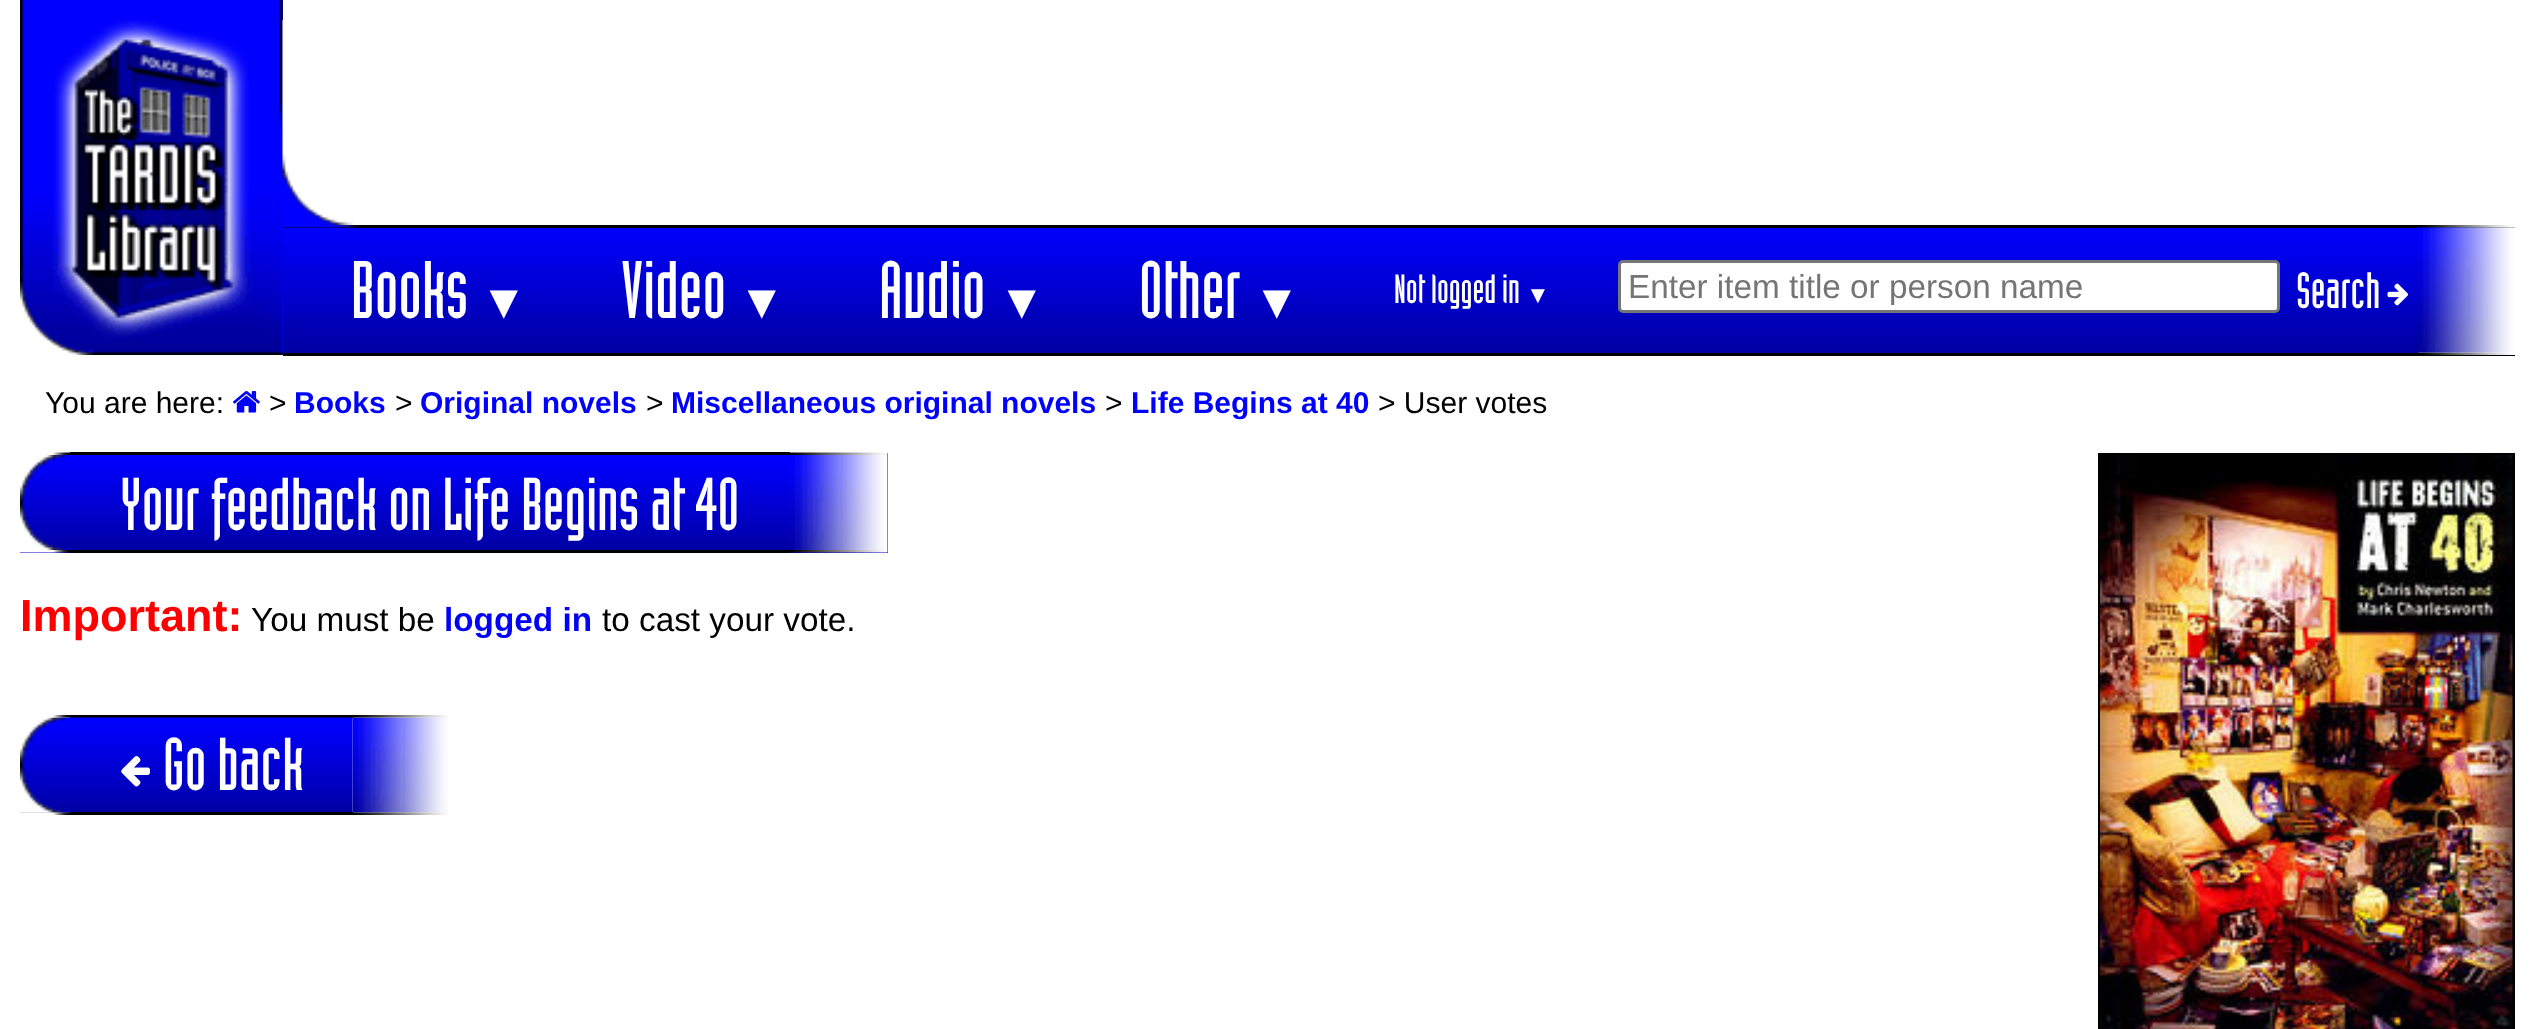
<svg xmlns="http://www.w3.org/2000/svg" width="2535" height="1029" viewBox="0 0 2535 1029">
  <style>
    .t1 { font: 80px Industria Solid; fill: #fff; }
    .t2 { font: 48px Liberation Sans; fill: #fff; }
    .t3 { font: 40px Industria Solid; fill: #fff; }
    .t4 { font: 24px Liberation Sans; fill: #fff; }
    .t5 { font: 33.3px Liberation Sans; fill: #757575; }
    .t6 { font: 50px Industria Solid; fill: #fff; }
    .t7 { font: 30px Liberation Sans; fill: #000; }
    .t8 { font: bold 30px Liberation Sans; fill: #00f; }
    .t9 { font: 73.25px Industria Solid; fill: #fff; }
    .t10 { font: bold 45px Liberation Sans; fill: #f00; }
    .t11 { font: 33.3px Liberation Sans; fill: #000; }
    .t12 { font: bold 33.3px Liberation Sans; fill: #00f; }
  </style>
  <defs>
    <linearGradient id="g1" gradientUnits="userSpaceOnUse" x1="1350" y1="227" x2="1350" y2="353"><stop offset="0" stop-color="#00f"/><stop offset="1" stop-color="#0000a0"/></linearGradient>
  </defs>
  <rect width="100%" height="100%" fill="#fff"/>
  <rect x="282" y="0" width="1" height="355" fill="#00f"/>
  <image x="20" y="0" width="263" height="355" href="images/1.png"/>
  <image x="52" y="20" width="201" height="320" href="images/2.png"/>
  <image x="282" y="20" width="72" height="205" href="images/3.png"/>
  <rect x="283" y="225" width="2232" height="3" fill="#000"/>
  <image x="2422" y="225" width="93" height="3" href="images/4.png"/>
  <image x="283" y="225" width="76" height="3" href="images/5.png"/>
  <rect x="283" y="353" width="2232" height="3" fill="#000"/>
  <image x="2417" y="352" width="98" height="3" href="images/8.png"/>
  <image x="2417" y="227" width="98" height="126" href="images/7.png"/>
  <rect x="283" y="228" width="2135" height="125" fill="url(#g1)"/>
  <text x="351" y="318" class="t1">Books</text>
  <text x="480" y="318" class="t2">▼</text>
  <text x="621" y="318" class="t1">Video</text>
  <text x="738" y="318" class="t2">▼</text>
  <text x="879" y="318" class="t1">Audio</text>
  <text x="998" y="318" class="t2">▼</text>
  <text x="1139" y="318" class="t1">Other</text>
  <text x="1253" y="318" class="t2">▼</text>
  <text x="1394" y="303" class="t3">Not logged in</text>
  <text x="1526" y="303" class="t4">▼</text>
  <rect x="1619.5" y="261.5" width="659" height="50" rx="3.5" fill="#fff" stroke="#767676" stroke-width="3"/>
  <text x="1628" y="298" class="t5">Enter item title or person name</text>
  <text x="2296" y="308" class="t6">Search</text>
  <image x="2387" y="283" width="21" height="23" href="images/6.png"/>
  <text x="45" y="413" class="t7">You are here:</text>
  <image x="233" y="391" width="27" height="22" href="images/9.png"/>
  <text x="269" y="413" class="t7">&gt;</text>
  <text x="294" y="413" class="t8">Books</text>
  <text x="395" y="413" class="t7">&gt;</text>
  <text x="420" y="413" class="t8">Original novels</text>
  <text x="646" y="413" class="t7">&gt;</text>
  <text x="671" y="413" class="t8">Miscellaneous original novels</text>
  <text x="1105" y="413" class="t7">&gt;</text>
  <text x="1131" y="413" class="t8">Life Begins at 40</text>
  <text x="1378" y="413" class="t7">&gt; User votes</text>
  <rect x="20" y="453" width="868" height="100" fill="#0000d0"/>
  <image x="20" y="452" width="50" height="3" href="images/10.png"/>
  <rect x="70" y="452" width="720" height="3" fill="#000"/>
  <image x="790" y="452" width="98" height="3" href="images/11.png"/>
  <image x="20" y="455" width="50" height="94" href="images/12.png"/>
  <image x="20" y="502" width="50" height="48" href="images/13.png"/>
  <image x="70" y="455" width="720" height="95" href="images/14.png"/>
  <text x="120" y="530" class="t9">Your feedback on Life Begins at 40</text>
  <image x="790" y="455" width="98" height="95" href="images/15.png"/>
  <image x="20" y="550" width="50" height="3" href="images/16.png"/>
  <rect x="70" y="550" width="720" height="3" fill="#000"/>
  <image x="790" y="550" width="98" height="3" href="images/17.png"/>
  <rect x="2099.5" y="454.5" width="414" height="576" fill="none" stroke="#000" stroke-width="3"/>
  <image x="2100" y="455" width="413" height="574" href="images/18.png"/>
  <text x="20" y="631" class="t10">Important:</text>
  <text x="251" y="631" class="t11">You must be</text>
  <text x="444" y="631" class="t12">logged in</text>
  <text x="602" y="631" class="t11">to cast your vote.</text>
  <image x="20" y="717" width="50" height="96" href="images/21.png"/>
  <image x="20" y="715" width="50" height="3" href="images/19.png"/>
  <rect x="70" y="715" width="283" height="3" fill="#000"/>
  <image x="70" y="717" width="283" height="95" href="images/23.png"/>
  <image x="352" y="717" width="98" height="96" href="images/25.png"/>
  <image x="352" y="715" width="98" height="3" href="images/20.png"/>
  <image x="20" y="765" width="50" height="48" href="images/22.png"/>
  <image x="121" y="756" width="29" height="31" href="images/24.png"/>
  <text x="163" y="790" class="t9">Go back</text>
  <image x="20" y="812" width="50" height="3" href="images/26.png"/>
  <rect x="70" y="812" width="283" height="3" fill="#000"/>
  <image x="353" y="812" width="97" height="3" href="images/27.png"/>
</svg>
